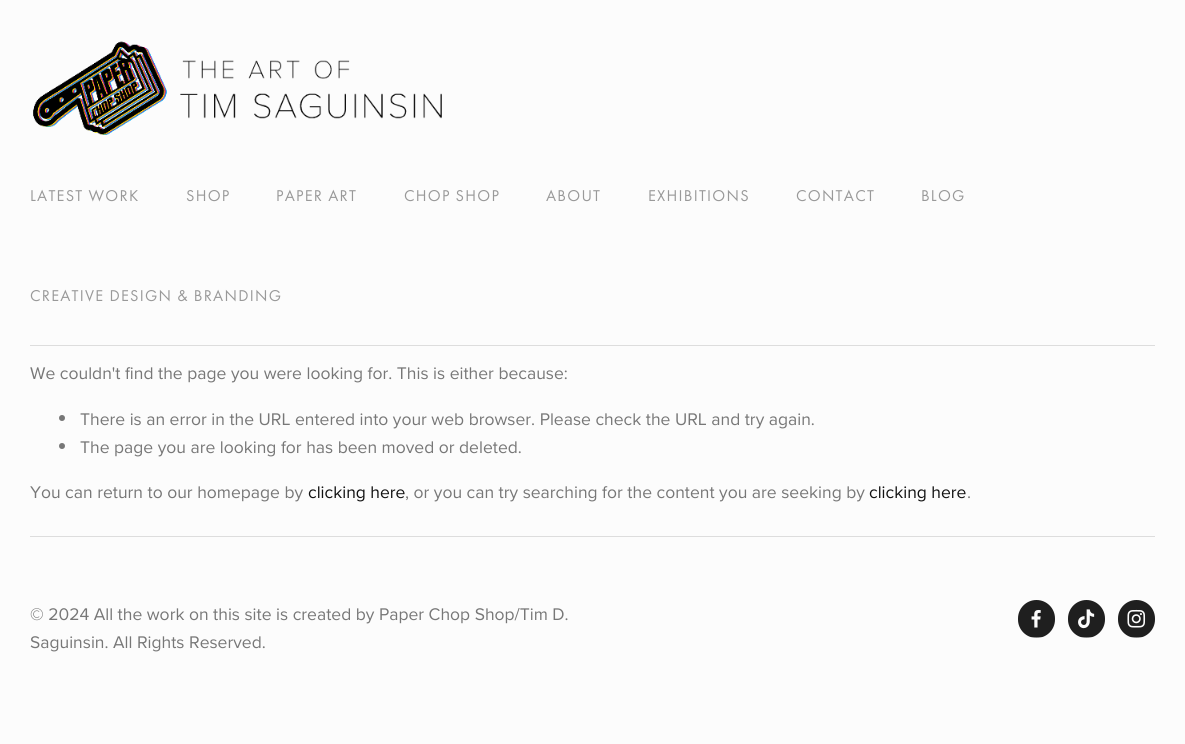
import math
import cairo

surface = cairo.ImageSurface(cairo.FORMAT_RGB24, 1185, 744)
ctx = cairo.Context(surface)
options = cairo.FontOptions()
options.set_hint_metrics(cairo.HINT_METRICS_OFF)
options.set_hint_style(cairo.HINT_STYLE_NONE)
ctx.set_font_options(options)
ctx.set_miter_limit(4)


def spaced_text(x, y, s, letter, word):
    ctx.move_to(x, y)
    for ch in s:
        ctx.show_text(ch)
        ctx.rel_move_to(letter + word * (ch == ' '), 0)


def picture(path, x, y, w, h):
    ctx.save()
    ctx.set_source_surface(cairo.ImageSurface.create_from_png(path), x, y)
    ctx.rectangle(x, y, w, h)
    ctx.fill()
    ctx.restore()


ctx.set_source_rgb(0.988, 0.988, 0.988)
ctx.paint()
picture("img1.png", 33, 41, 409, 94)
ctx.select_font_face("Futura PT")
ctx.set_font_size(16.25)
ctx.set_source_rgb(0.6, 0.6, 0.6)
spaced_text(30, 201, "LATEST WORK", 1.25, 0)
spaced_text(186, 201, "SHOP", 1.25, 0)
spaced_text(276, 201, "PAPER ART", 1.25, 0)
spaced_text(404, 201, "CHOP SHOP", 1.25, 0)
spaced_text(546, 201, "ABOUT", 1.25, 0)
spaced_text(648, 201, "EXHIBITIONS", 1.25, 0)
spaced_text(796, 201, "CONTACT", 1.25, 0)
spaced_text(921, 201, "BLOG", 1.25, 0)
spaced_text(30, 301, "CREATIVE DESIGN & BRANDING", 1.25, 0)
ctx.set_source_rgb(0.867, 0.867, 0.867)
ctx.rectangle(30, 345, 1125, 1)
ctx.fill()
ctx.select_font_face("Proxima Nova")
ctx.set_font_size(17.5)
ctx.set_source_rgb(0.467, 0.467, 0.467)
ctx.move_to(30, 379)
ctx.show_text("We couldn't find the page you were looking for. This is either because:")
ctx.new_path()
ctx.arc(62, 418, 3, 0, 2 * math.pi)
ctx.fill()
ctx.move_to(80, 425)
ctx.show_text("There is an error in the URL entered into your web browser. Please check the URL and try again.")
ctx.new_path()
ctx.arc(62, 446, 3, 0, 2 * math.pi)
ctx.fill()
ctx.move_to(80, 453)
ctx.show_text("The page you are looking for has been moved or deleted.")
ctx.move_to(30, 498)
ctx.show_text("You can return to our homepage by")
ctx.set_source_rgb(0.067, 0.067, 0.067)
ctx.move_to(308, 498)
ctx.show_text("clicking here")
ctx.set_source_rgb(0.467, 0.467, 0.467)
ctx.move_to(405, 498)
ctx.show_text(", or you can try searching for the content you are seeking by")
ctx.set_source_rgb(0.067, 0.067, 0.067)
ctx.move_to(869, 498)
ctx.show_text("clicking here")
ctx.set_source_rgb(0.467, 0.467, 0.467)
ctx.move_to(967, 498)
ctx.show_text(".")
ctx.set_source_rgb(0.867, 0.867, 0.867)
ctx.rectangle(30, 536, 1125, 1)
ctx.fill()
ctx.set_source_rgb(0.467, 0.467, 0.467)
ctx.move_to(30, 620)
ctx.show_text("© 2024 All the work on this site is created by Paper Chop Shop/Tim D.")
ctx.move_to(30, 648)
ctx.show_text("Saguinsin. All Rights Reserved.")
picture("img2.png", 1018, 600, 37, 38)
picture("img3.png", 1068, 600, 37, 38)
picture("img4.png", 1118, 600, 37, 38)
surface.write_to_png("page.png")
